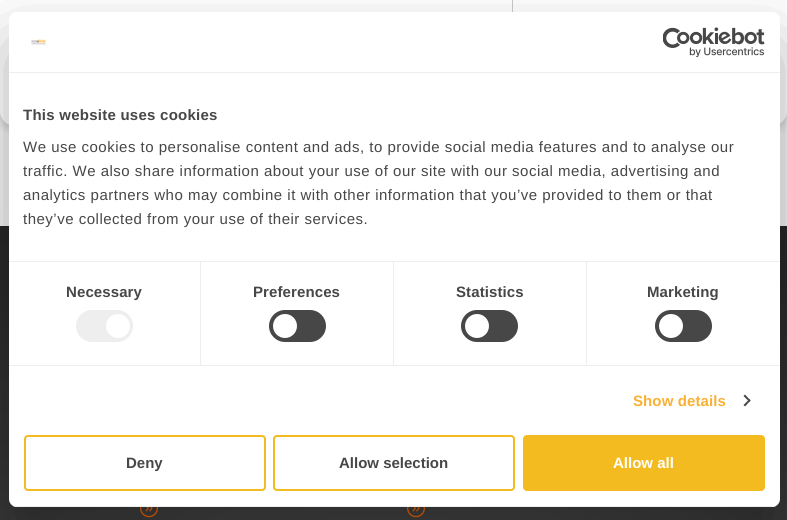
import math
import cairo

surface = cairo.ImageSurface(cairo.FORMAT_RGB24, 787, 520)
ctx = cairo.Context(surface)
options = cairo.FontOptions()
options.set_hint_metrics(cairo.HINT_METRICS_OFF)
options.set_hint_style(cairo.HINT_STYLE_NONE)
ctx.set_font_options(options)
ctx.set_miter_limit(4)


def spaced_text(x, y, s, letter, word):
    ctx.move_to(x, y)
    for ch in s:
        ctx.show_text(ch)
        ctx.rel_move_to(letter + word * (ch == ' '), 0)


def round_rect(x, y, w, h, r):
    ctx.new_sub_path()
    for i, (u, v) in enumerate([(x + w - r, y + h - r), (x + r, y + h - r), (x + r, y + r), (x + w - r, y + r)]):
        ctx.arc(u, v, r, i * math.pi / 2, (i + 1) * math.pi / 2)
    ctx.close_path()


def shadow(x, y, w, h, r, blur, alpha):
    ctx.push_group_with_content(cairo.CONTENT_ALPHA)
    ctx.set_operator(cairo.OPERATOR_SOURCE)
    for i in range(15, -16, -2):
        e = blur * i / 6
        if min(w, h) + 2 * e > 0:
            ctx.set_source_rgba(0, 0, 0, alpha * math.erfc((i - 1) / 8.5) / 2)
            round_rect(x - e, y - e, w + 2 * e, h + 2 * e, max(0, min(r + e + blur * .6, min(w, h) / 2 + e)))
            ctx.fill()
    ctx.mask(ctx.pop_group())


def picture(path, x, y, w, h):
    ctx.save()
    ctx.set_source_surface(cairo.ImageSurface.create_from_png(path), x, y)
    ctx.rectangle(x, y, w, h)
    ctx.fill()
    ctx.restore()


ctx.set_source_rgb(1, 1, 1)
ctx.paint()
picture("img1.png", 0, 111, 787, 115)
ctx.set_source_rgb(0, 0, 0)
shadow(0, -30, 787, 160, 15, 5, 0.21)
ctx.set_source_rgb(1, 1, 1)
round_rect(0, -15, 787, 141, 15)
ctx.fill()
ctx.set_source_rgb(0.792, 0.792, 0.792)
ctx.rectangle(512, 0, 1, 12)
ctx.fill()
picture("img2.png", 0, 226, 787, 294)
picture("img3.png", 140, 507, 18, 11)
picture("img4.png", 407, 507, 18, 11)
ctx.set_source_rgb(0, 0, 0)
shadow(9, 44, 771, 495, 8, 34, 0.3)
ctx.set_source_rgb(1, 1, 1)
round_rect(9, 12, 771, 495, 8)
ctx.fill()
ctx.set_source_rgb(0.933, 0.933, 0.933)
ctx.rectangle(9, 72, 771, 1)
ctx.fill()
picture("img5.png", 31, 39, 16, 6)
picture("img6.png", 663, 27, 102, 30)
ctx.rectangle(9, 261, 771, 1)
ctx.fill()
ctx.select_font_face("Liberation Sans", cairo.FONT_SLANT_NORMAL, cairo.FONT_WEIGHT_BOLD)
ctx.set_font_size(15)
ctx.set_source_rgb(0.282, 0.278, 0.278)
spaced_text(23, 120, "This website uses cookies", 0.25, 0)
ctx.select_font_face("Liberation Sans")
spaced_text(23, 152, "We use cookies to personalise content and ads, to provide social media features and to analyse our", 0.5, 0)
spaced_text(23, 176, "traffic. We also share information about your use of our site with our social media, advertising and", 0.5, 0)
spaced_text(23, 200, "analytics partners who may combine it with other information that you’ve provided to them or that", 0.5, 0)
spaced_text(23, 224, "they’ve collected from your use of their services.", 0.5, 0)
ctx.set_source_rgb(0.933, 0.933, 0.933)
ctx.rectangle(9, 365, 771, 1)
ctx.fill()
ctx.rectangle(200, 262, 1, 103)
ctx.fill()
ctx.select_font_face("Liberation Sans", cairo.FONT_SLANT_NORMAL, cairo.FONT_WEIGHT_BOLD)
ctx.set_source_rgb(0.282, 0.278, 0.278)
spaced_text(66, 297, "Necessary", 0.1, 0)
ctx.set_source_rgb(0.933, 0.933, 0.933)
round_rect(76, 310, 57, 32, 16)
ctx.fill()
ctx.set_source_rgb(1, 1, 1)
ctx.arc(118, 326, 12, 0, 2 * math.pi)
ctx.fill()
ctx.set_source_rgb(0.933, 0.933, 0.933)
ctx.rectangle(393, 262, 1, 103)
ctx.fill()
ctx.set_source_rgb(0.282, 0.278, 0.278)
spaced_text(253, 297, "Preferences", 0.1, 0)
round_rect(269, 310, 57, 32, 16)
ctx.fill()
ctx.set_source_rgb(1, 1, 1)
ctx.arc(285, 326, 12, 0, 2 * math.pi)
ctx.fill()
ctx.set_source_rgb(0.933, 0.933, 0.933)
ctx.rectangle(586, 262, 1, 103)
ctx.fill()
ctx.set_source_rgb(0.282, 0.278, 0.278)
spaced_text(456, 297, "Statistics", 0.1, 0)
round_rect(461, 310, 57, 32, 16)
ctx.fill()
ctx.set_source_rgb(1, 1, 1)
ctx.arc(477, 326, 12, 0, 2 * math.pi)
ctx.fill()
ctx.set_source_rgb(0.282, 0.278, 0.278)
spaced_text(647, 297, "Marketing", 0.1, 0)
round_rect(655, 310, 57, 32, 16)
ctx.fill()
ctx.set_source_rgb(1, 1, 1)
ctx.arc(671, 326, 12, 0, 2 * math.pi)
ctx.fill()
ctx.set_source_rgb(0.976, 0.694, 0.204)
spaced_text(633, 406, "Show details", 0.1, 0)
ctx.set_source_rgb(0.282, 0.278, 0.278)
ctx.new_path()
ctx.move_to(745, 394.5)
ctx.line_to(750.5, 400.5)
ctx.line_to(749.5, 402)
ctx.line_to(743.5, 396)
ctx.close_path()
ctx.fill()
ctx.new_path()
ctx.move_to(749.5, 399)
ctx.line_to(750.5, 400.5)
ctx.line_to(745, 406.5)
ctx.line_to(743.5, 405)
ctx.close_path()
ctx.fill()
ctx.save()
round_rect(9, 12, 771, 495, 8)
ctx.clip()
ctx.set_source_rgb(0.933, 0.933, 0.933)
ctx.rectangle(9, 506, 771, 1)
ctx.fill()
ctx.restore()
round_rect(25, 436, 240, 54, 3)
ctx.set_source_rgb(0.953, 0.733, 0.125)
ctx.stroke()
ctx.set_source_rgb(0.282, 0.278, 0.278)
ctx.move_to(126, 468)
ctx.show_text("Deny")
round_rect(274, 436, 240, 54, 3)
ctx.set_source_rgb(0.953, 0.733, 0.125)
ctx.stroke()
ctx.set_source_rgb(0.282, 0.278, 0.278)
ctx.move_to(339, 468)
ctx.show_text("Allow selection")
ctx.set_source_rgb(0.953, 0.733, 0.125)
round_rect(524, 436, 240, 54, 3)
ctx.fill_preserve()
ctx.stroke()
ctx.set_source_rgb(1, 1, 1)
ctx.move_to(613, 468)
ctx.show_text("Allow all")
surface.write_to_png("page.png")
